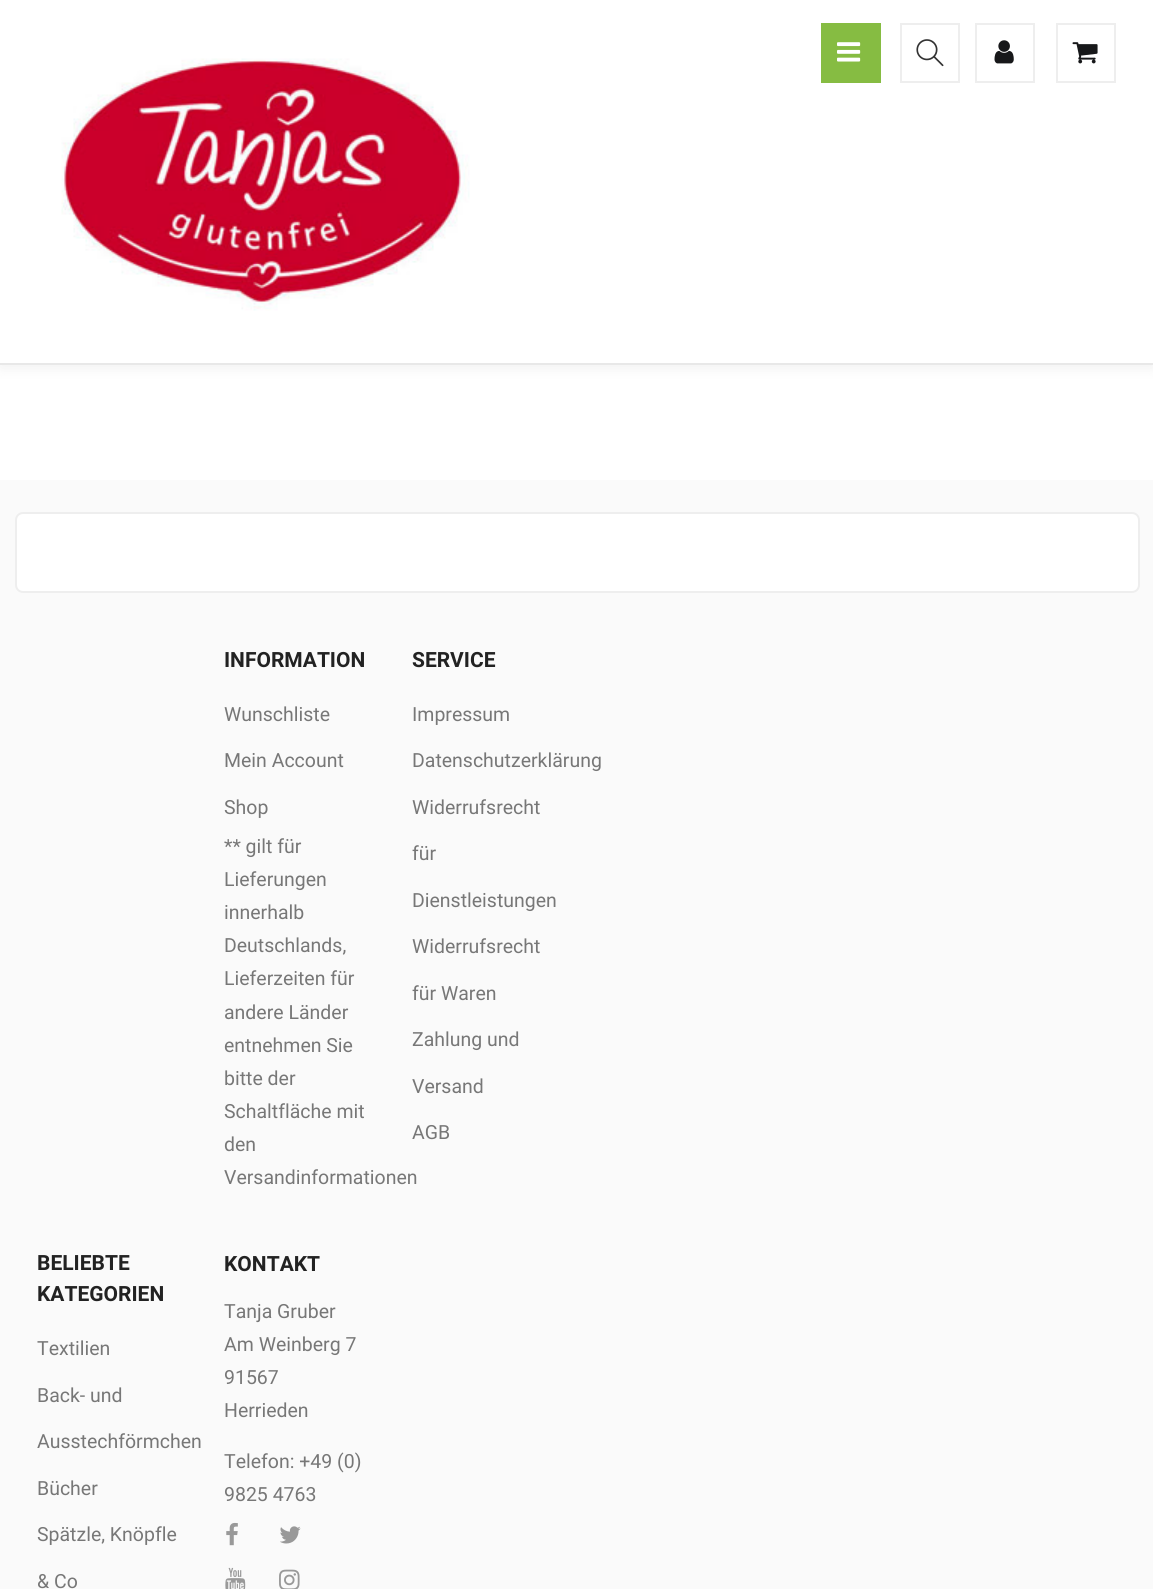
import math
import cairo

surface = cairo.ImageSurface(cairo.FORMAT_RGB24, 1153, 1589)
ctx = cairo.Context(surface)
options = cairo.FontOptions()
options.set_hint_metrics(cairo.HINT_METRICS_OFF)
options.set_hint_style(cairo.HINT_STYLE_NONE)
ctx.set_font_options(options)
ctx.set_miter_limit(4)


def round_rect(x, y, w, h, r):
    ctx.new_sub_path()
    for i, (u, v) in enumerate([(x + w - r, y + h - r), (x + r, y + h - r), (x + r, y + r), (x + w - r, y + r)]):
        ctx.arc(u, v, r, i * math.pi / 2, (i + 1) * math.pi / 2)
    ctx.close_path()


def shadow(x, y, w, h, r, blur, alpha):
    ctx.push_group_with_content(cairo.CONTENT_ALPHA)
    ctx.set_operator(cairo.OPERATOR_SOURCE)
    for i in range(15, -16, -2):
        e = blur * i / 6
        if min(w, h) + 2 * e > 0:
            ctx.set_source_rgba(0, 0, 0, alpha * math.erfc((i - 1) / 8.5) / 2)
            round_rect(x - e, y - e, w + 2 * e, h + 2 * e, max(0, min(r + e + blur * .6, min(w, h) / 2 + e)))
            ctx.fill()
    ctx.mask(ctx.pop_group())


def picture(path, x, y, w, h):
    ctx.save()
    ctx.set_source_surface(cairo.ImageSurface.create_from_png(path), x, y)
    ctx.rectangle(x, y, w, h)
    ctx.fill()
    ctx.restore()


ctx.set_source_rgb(1, 1, 1)
ctx.paint()
ctx.set_source_rgb(0, 0, 0)
shadow(0, 3, 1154, 365, 0, 7.5, 0.06)
ctx.set_source_rgb(1, 1, 1)
ctx.rectangle(0, 0, 1153, 363)
ctx.fill()
ctx.set_source_rgb(0.91, 0.91, 0.91)
ctx.rectangle(0, 363, 1153, 2)
ctx.fill()
picture("img1.png", 61, 58, 409, 253)
ctx.set_source_rgb(0.525, 0.737, 0.259)
ctx.rectangle(821, 23, 60, 60)
ctx.fill()
picture("img2.png", 837, 42, 24, 20)
ctx.rectangle(901, 24, 58, 58)
ctx.set_source_rgb(0.933, 0.933, 0.933)
ctx.stroke()
picture("img3.png", 916, 39, 28, 28)
ctx.rectangle(976, 24, 58, 58)
ctx.stroke()
picture("img4.png", 994, 40, 20, 24)
ctx.rectangle(1057, 24, 58, 58)
ctx.stroke()
picture("img5.png", 1072, 42, 26, 22)
ctx.set_source_rgb(0.98, 0.98, 0.98)
ctx.rectangle(0, 480, 1153, 1109)
ctx.fill()
ctx.set_source_rgb(1, 1, 1)
round_rect(16, 513, 1123, 79, 7)
ctx.fill_preserve()
ctx.set_source_rgb(0.933, 0.933, 0.933)
ctx.stroke()
ctx.select_font_face("Roboto", cairo.FONT_SLANT_NORMAL, cairo.FONT_WEIGHT_BOLD)
ctx.set_font_size(21)
ctx.set_source_rgb(0.133, 0.133, 0.133)
ctx.move_to(224, 667)
ctx.show_text("INFORMATION")
ctx.select_font_face("Roboto")
ctx.set_font_size(19.5)
ctx.set_source_rgb(0.467, 0.467, 0.467)
ctx.move_to(224, 721)
ctx.show_text("Wunschliste")
ctx.move_to(224, 767)
ctx.show_text("Mein Account")
ctx.move_to(224, 814)
ctx.show_text("Shop")
ctx.move_to(224, 853)
ctx.show_text("** gilt für")
ctx.move_to(224, 886)
ctx.show_text("Lieferungen")
ctx.move_to(224, 919)
ctx.show_text("innerhalb")
ctx.move_to(224, 952)
ctx.show_text("Deutschlands,")
ctx.move_to(224, 985)
ctx.show_text("Lieferzeiten für")
ctx.move_to(224, 1019)
ctx.show_text("andere Länder")
ctx.move_to(224, 1052)
ctx.show_text("entnehmen Sie")
ctx.move_to(224, 1085)
ctx.show_text("bitte der")
ctx.move_to(224, 1118)
ctx.show_text("Schaltfläche mit")
ctx.move_to(224, 1151)
ctx.show_text("den")
ctx.move_to(224, 1184)
ctx.show_text("Versandinformationen")
ctx.select_font_face("Roboto", cairo.FONT_SLANT_NORMAL, cairo.FONT_WEIGHT_BOLD)
ctx.set_font_size(21)
ctx.set_source_rgb(0.133, 0.133, 0.133)
ctx.move_to(412, 667)
ctx.show_text("SERVICE")
ctx.select_font_face("Roboto")
ctx.set_font_size(19.5)
ctx.set_source_rgb(0.467, 0.467, 0.467)
ctx.move_to(412, 721)
ctx.show_text("Impressum")
ctx.move_to(412, 767)
ctx.show_text("Datenschutzerklärung")
ctx.move_to(412, 814)
ctx.show_text("Widerrufsrecht")
ctx.move_to(412, 860)
ctx.show_text("für")
ctx.move_to(412, 907)
ctx.show_text("Dienstleistungen")
ctx.move_to(412, 953)
ctx.show_text("Widerrufsrecht")
ctx.move_to(412, 1000)
ctx.show_text("für Waren")
ctx.move_to(412, 1046)
ctx.show_text("Zahlung und")
ctx.move_to(412, 1093)
ctx.show_text("Versand")
ctx.move_to(412, 1139)
ctx.show_text("AGB")
ctx.select_font_face("Roboto", cairo.FONT_SLANT_NORMAL, cairo.FONT_WEIGHT_BOLD)
ctx.set_font_size(21)
ctx.set_source_rgb(0.133, 0.133, 0.133)
ctx.move_to(37, 1270)
ctx.show_text("BELIEBTE")
ctx.move_to(37, 1301)
ctx.show_text("KATEGORIEN")
ctx.select_font_face("Roboto")
ctx.set_font_size(19.5)
ctx.set_source_rgb(0.467, 0.467, 0.467)
ctx.move_to(37, 1355)
ctx.show_text("Textilien")
ctx.move_to(37, 1402)
ctx.show_text("Back- und")
ctx.move_to(37, 1448)
ctx.show_text("Ausstechförmchen")
ctx.move_to(37, 1495)
ctx.show_text("Bücher")
ctx.move_to(37, 1541)
ctx.show_text("Spätzle, Knöpfle")
ctx.move_to(37, 1588)
ctx.show_text("& Co")
ctx.select_font_face("Roboto", cairo.FONT_SLANT_NORMAL, cairo.FONT_WEIGHT_BOLD)
ctx.set_font_size(21)
ctx.set_source_rgb(0.133, 0.133, 0.133)
ctx.move_to(224, 1271)
ctx.show_text("KONTAKT")
ctx.select_font_face("Roboto")
ctx.set_font_size(19.5)
ctx.set_source_rgb(0.467, 0.467, 0.467)
ctx.move_to(224, 1318)
ctx.show_text("Tanja Gruber")
ctx.move_to(224, 1351)
ctx.show_text("Am Weinberg 7")
ctx.move_to(224, 1384)
ctx.show_text("91567")
ctx.move_to(224, 1417)
ctx.show_text("Herrieden")
ctx.move_to(224, 1468)
ctx.show_text("Telefon: +49 (0)")
ctx.move_to(224, 1501)
ctx.show_text("9825 4763")
picture("img6.png", 226, 1522, 12, 24)
picture("img7.png", 280, 1526, 21, 18)
picture("img8.png", 225, 1567, 21, 22)
picture("img9.png", 279, 1569, 21, 20)
surface.write_to_png("page.png")
